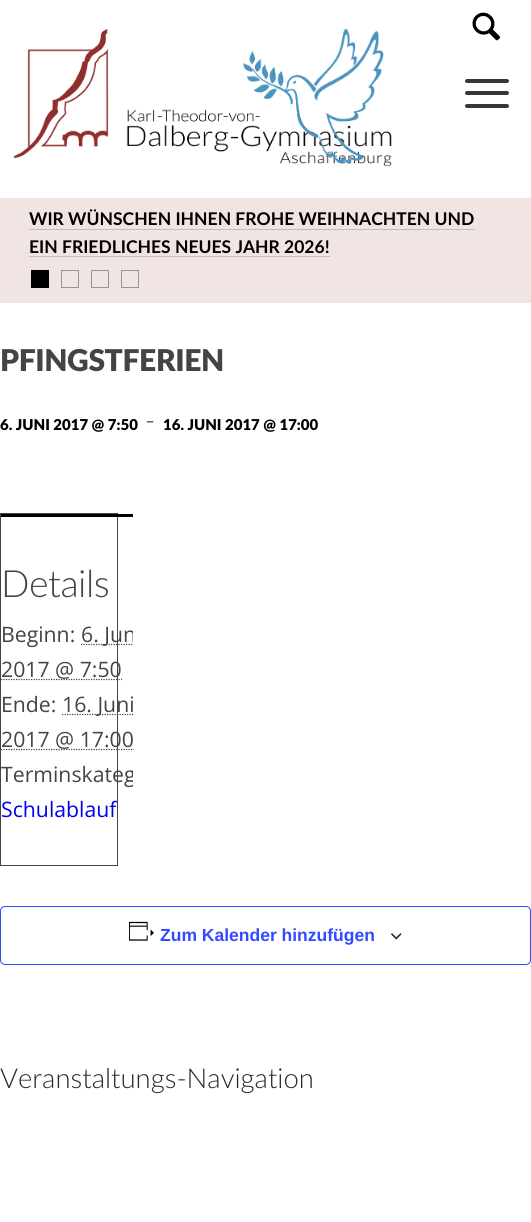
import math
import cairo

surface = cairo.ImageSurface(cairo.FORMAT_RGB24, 531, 1222)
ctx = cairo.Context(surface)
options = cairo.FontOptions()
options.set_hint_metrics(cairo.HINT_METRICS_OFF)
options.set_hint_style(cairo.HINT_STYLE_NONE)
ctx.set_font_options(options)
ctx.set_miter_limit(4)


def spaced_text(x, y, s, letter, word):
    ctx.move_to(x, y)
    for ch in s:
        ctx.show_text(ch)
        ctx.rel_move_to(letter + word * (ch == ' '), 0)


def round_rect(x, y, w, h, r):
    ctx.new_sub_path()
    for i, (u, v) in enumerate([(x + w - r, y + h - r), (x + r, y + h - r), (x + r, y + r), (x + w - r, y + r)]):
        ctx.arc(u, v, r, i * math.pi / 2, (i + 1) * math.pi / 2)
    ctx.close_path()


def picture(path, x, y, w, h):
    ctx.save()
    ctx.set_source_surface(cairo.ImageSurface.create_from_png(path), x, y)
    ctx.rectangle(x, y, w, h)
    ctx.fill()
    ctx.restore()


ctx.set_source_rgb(1, 1, 1)
ctx.paint()
picture("img1.png", 13, 28, 379, 139)
picture("img2.png", 472, 12, 29, 29)
ctx.set_source_rgb(0.22, 0.22, 0.22)
round_rect(465, 91, 44, 4, 2)
ctx.fill()
round_rect(465, 79, 44, 4, 2)
ctx.fill()
round_rect(465, 104, 44, 4, 2)
ctx.fill()
ctx.set_source_rgb(0.945, 0.898, 0.894)
ctx.rectangle(0, 198, 531, 105)
ctx.fill()
ctx.select_font_face("Lato", cairo.FONT_SLANT_NORMAL, cairo.FONT_WEIGHT_BOLD)
ctx.set_font_size(17.5)
ctx.set_source_rgb(0, 0, 0)
ctx.move_to(29, 225)
ctx.show_text("WIR WÜNSCHEN IHNEN FROHE WEIHNACHTEN UND")
ctx.set_source_rgb(0.776, 0.737, 0.733)
ctx.rectangle(29, 229, 446, 1)
ctx.fill()
ctx.set_source_rgb(0, 0, 0)
ctx.move_to(29, 253)
ctx.show_text("EIN FRIEDLICHES NEUES JAHR 2026!")
ctx.set_source_rgb(0.776, 0.737, 0.733)
ctx.rectangle(29, 256, 301, 1)
ctx.fill()
ctx.set_source_rgb(0, 0, 0)
ctx.rectangle(31, 270, 18, 18)
ctx.fill()
ctx.rectangle(61.5, 270.5, 17, 17)
ctx.set_source_rgb(0.604, 0.576, 0.573)
ctx.set_line_width(1)
ctx.stroke()
ctx.rectangle(91.5, 270.5, 17, 17)
ctx.stroke()
ctx.rectangle(121.5, 270.5, 17, 17)
ctx.stroke()
ctx.select_font_face("Lato ExtraBold")
ctx.set_font_size(30)
ctx.set_source_rgb(0.267, 0.267, 0.267)
spaced_text(0, 371, "PFINGSTFERIEN", -0.4, 0)
ctx.set_font_size(15)
ctx.set_source_rgb(0, 0, 0)
ctx.move_to(0, 430)
ctx.show_text("6. JUNI 2017 @ 7:50")
ctx.select_font_face("Lato Light")
ctx.set_font_size(27.5)
ctx.set_source_rgb(0.161, 0.161, 0.161)
ctx.move_to(145, 430)
ctx.show_text("-")
ctx.select_font_face("Lato ExtraBold")
ctx.set_font_size(15)
ctx.set_source_rgb(0, 0, 0)
ctx.move_to(163, 430)
ctx.show_text("16. JUNI 2017 @ 17:00")
ctx.rectangle(0.5, 513.5, 117, 352)
ctx.set_source_rgb(0.267, 0.267, 0.267)
ctx.stroke()
ctx.set_source_rgb(0, 0, 0)
ctx.rectangle(1, 514, 132, 3)
ctx.fill()
ctx.select_font_face("Lato Light")
ctx.set_font_size(37.5)
ctx.set_source_rgb(0.267, 0.267, 0.267)
spaced_text(1, 597, "Details", -0.5, 0)
ctx.select_font_face("Open Sans")
ctx.set_font_size(21.25)
ctx.move_to(1, 642)
ctx.show_text("Beginn:")
ctx.save()
ctx.rectangle(0, 513, 133, 353)
ctx.clip()
ctx.new_path()
ctx.move_to(81, 644.5)
ctx.line_to(141.5, 644.5)
ctx.set_line_width(1.2)
ctx.set_dash([1.25, 1.25])
ctx.stroke()
ctx.move_to(81, 642)
ctx.show_text("6. Jun")
ctx.restore()
ctx.new_path()
ctx.move_to(1, 679.5)
ctx.line_to(122, 679.5)
ctx.set_line_width(1.2)
ctx.set_dash([1.25, 1.25])
ctx.stroke()
ctx.move_to(1, 677)
ctx.show_text("2017 @ 7:50")
ctx.move_to(1, 712)
ctx.show_text("Ende:")
ctx.new_path()
ctx.move_to(62, 714.5)
ctx.line_to(134.5, 714.5)
ctx.stroke()
ctx.move_to(62, 712)
ctx.show_text("16. Juni")
ctx.new_path()
ctx.move_to(1, 749.5)
ctx.line_to(134, 749.5)
ctx.stroke()
ctx.move_to(1, 747)
ctx.show_text("2017 @ 17:00")
ctx.save()
ctx.rectangle(0, 513, 133, 353)
ctx.clip()
ctx.move_to(1, 782)
ctx.show_text("Terminskateg")
ctx.restore()
ctx.set_source_rgb(0, 0, 0.933)
ctx.move_to(1, 817)
ctx.show_text("Schulablauf")
round_rect(0.5, 906.5, 530, 58, 4.5)
ctx.set_source_rgb(0.2, 0.29, 1)
ctx.set_line_width(1)
ctx.set_dash([])
ctx.stroke()
picture("img3.png", 129, 921, 25, 20)
ctx.select_font_face("Liberation Sans", cairo.FONT_SLANT_NORMAL, cairo.FONT_WEIGHT_BOLD)
ctx.set_font_size(17.5)
ctx.move_to(160, 941)
ctx.show_text("Zum Kalender hinzufügen")
picture("img4.png", 391, 933, 11, 7)
ctx.select_font_face("Lato Light")
ctx.set_font_size(27.5)
ctx.set_source_rgb(0.161, 0.161, 0.161)
ctx.move_to(0, 1088)
ctx.show_text("Veranstaltungs-Navigation")
surface.write_to_png("page.png")
